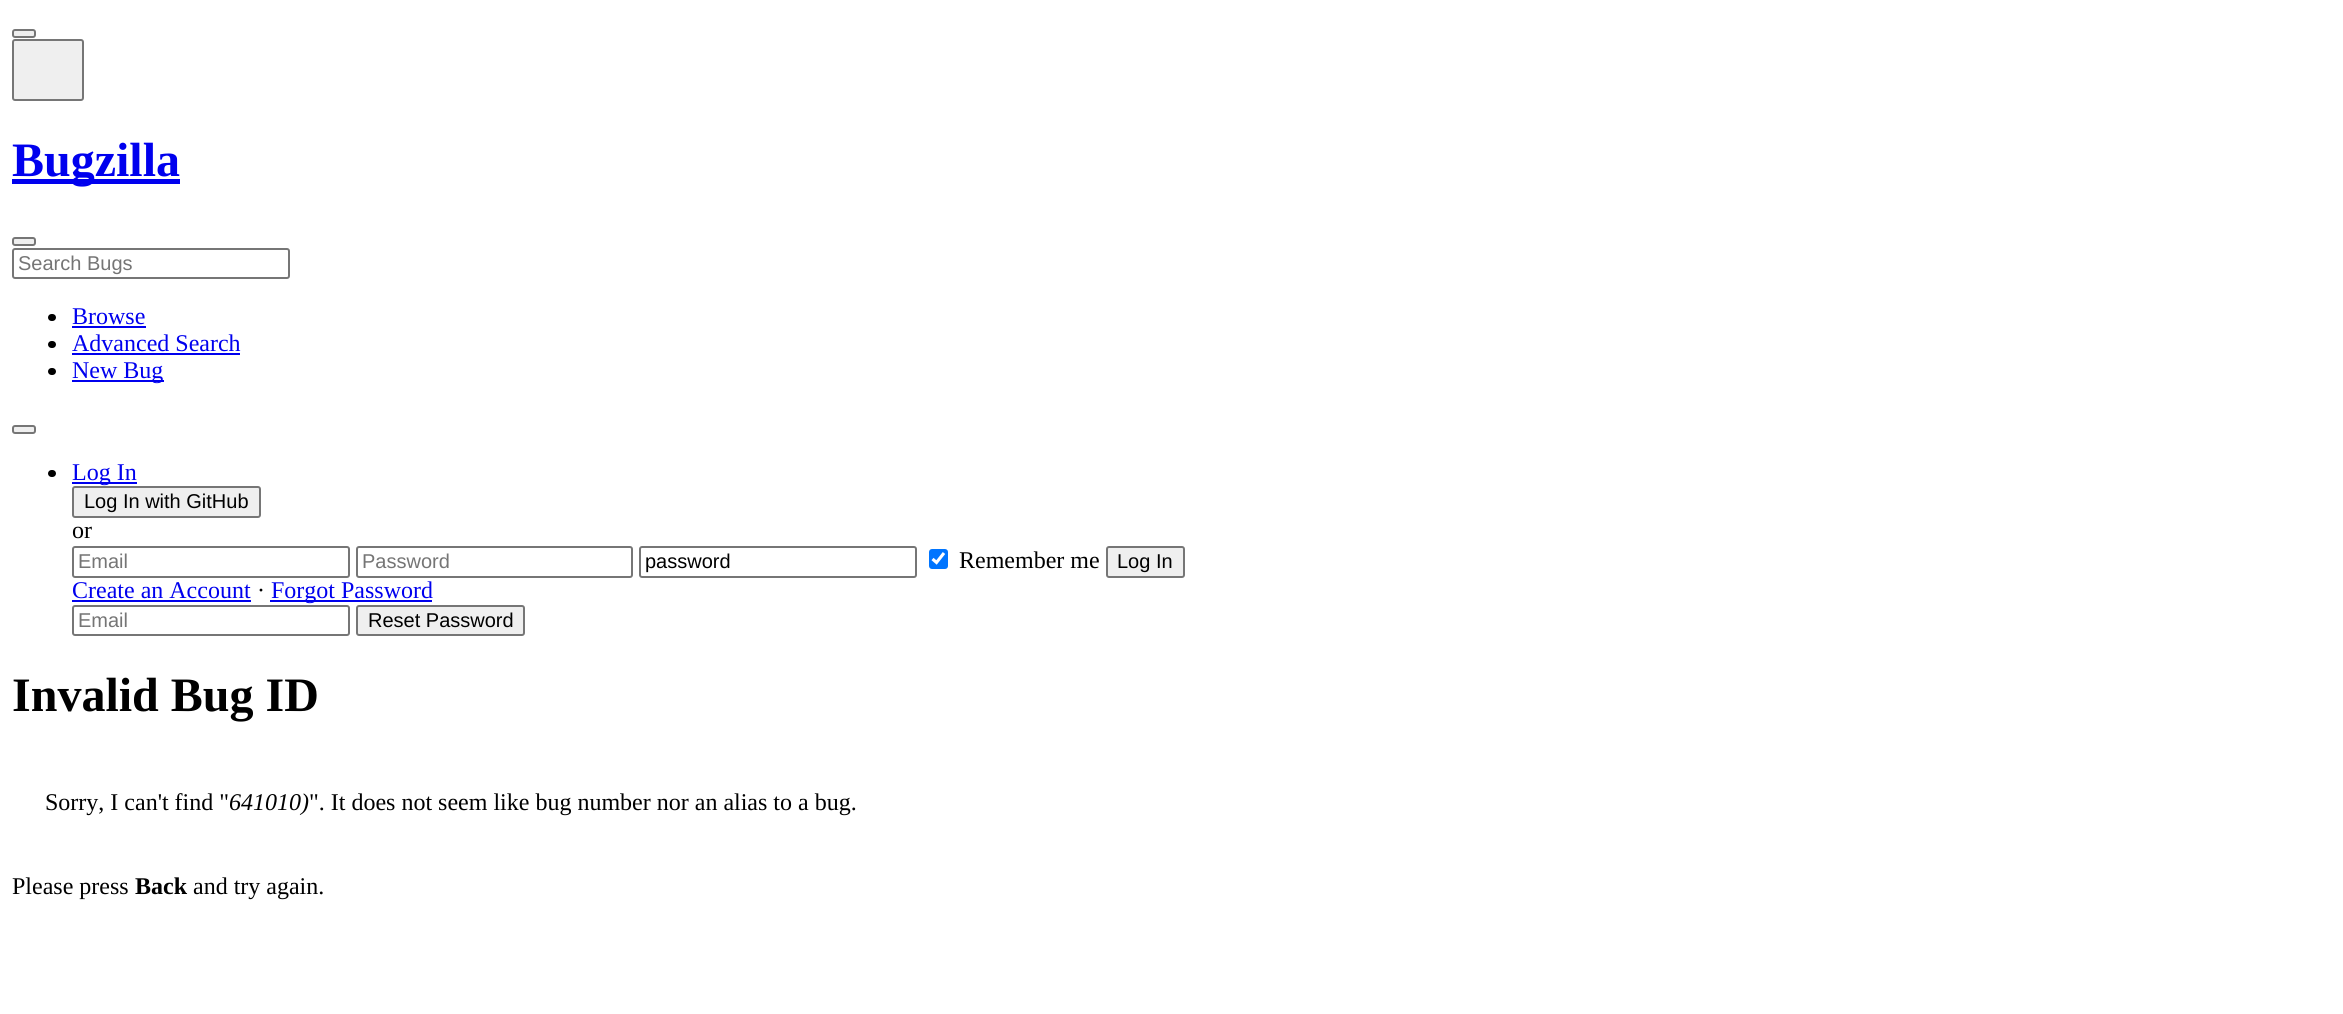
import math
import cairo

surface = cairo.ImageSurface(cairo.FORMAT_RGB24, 2343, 1014)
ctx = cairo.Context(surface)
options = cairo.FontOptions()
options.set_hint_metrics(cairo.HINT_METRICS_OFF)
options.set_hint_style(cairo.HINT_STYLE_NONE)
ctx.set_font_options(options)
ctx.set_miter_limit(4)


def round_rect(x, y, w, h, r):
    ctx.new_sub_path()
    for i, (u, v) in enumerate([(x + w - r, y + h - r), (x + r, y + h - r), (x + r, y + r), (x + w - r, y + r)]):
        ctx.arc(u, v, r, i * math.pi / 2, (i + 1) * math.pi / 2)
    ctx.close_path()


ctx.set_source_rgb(1, 1, 1)
ctx.paint()
ctx.set_source_rgb(0.937, 0.937, 0.937)
round_rect(13, 30, 22, 7, 2)
ctx.fill_preserve()
ctx.set_source_rgb(0.463, 0.463, 0.463)
ctx.stroke()
ctx.set_source_rgb(0.937, 0.937, 0.937)
round_rect(13, 40, 70, 60, 2)
ctx.fill_preserve()
ctx.set_source_rgb(0.463, 0.463, 0.463)
ctx.stroke()
ctx.set_source_rgb(0, 0, 0.933)
ctx.rectangle(12, 179, 168, 5)
ctx.fill()
ctx.select_font_face("Liberation Serif", cairo.FONT_SLANT_NORMAL, cairo.FONT_WEIGHT_BOLD)
ctx.set_font_size(48)
ctx.move_to(12, 176)
ctx.show_text("Bugzilla")
ctx.set_source_rgb(0.937, 0.937, 0.937)
round_rect(13, 238, 22, 7, 2)
ctx.fill_preserve()
ctx.set_source_rgb(0.463, 0.463, 0.463)
ctx.stroke()
round_rect(13, 249, 276, 29, 2)
ctx.stroke()
ctx.select_font_face("Liberation Sans")
ctx.set_font_size(20)
ctx.set_source_rgb(0.459, 0.459, 0.459)
ctx.move_to(18, 270)
ctx.show_text("Search Bugs")
ctx.set_source_rgb(0, 0, 0)
round_rect(48, 314, 8, 7, 3.5)
ctx.fill()
ctx.select_font_face("Liberation Serif")
ctx.set_font_size(24)
ctx.set_source_rgb(0, 0, 0.933)
ctx.move_to(72, 324)
ctx.show_text("Browse")
ctx.rectangle(72, 326, 74, 2)
ctx.fill()
ctx.set_source_rgb(0, 0, 0)
round_rect(48, 341, 8, 7, 3.5)
ctx.fill()
ctx.set_source_rgb(0, 0, 0.933)
ctx.move_to(72, 351)
ctx.show_text("Advanced Search")
ctx.rectangle(72, 353, 168, 2)
ctx.fill()
ctx.set_source_rgb(0, 0, 0)
round_rect(48, 368, 8, 7, 3.5)
ctx.fill()
ctx.set_source_rgb(0, 0, 0.933)
ctx.rectangle(72, 380, 92, 2)
ctx.fill()
ctx.move_to(72, 378)
ctx.show_text("New Bug")
ctx.set_source_rgb(0.937, 0.937, 0.937)
round_rect(13, 426, 22, 7, 2)
ctx.fill_preserve()
ctx.set_source_rgb(0.463, 0.463, 0.463)
ctx.stroke()
ctx.set_source_rgb(0, 0, 0)
round_rect(48, 470, 8, 7, 3.5)
ctx.fill()
ctx.set_source_rgb(0, 0, 0.933)
ctx.rectangle(72, 482, 65, 2)
ctx.fill()
ctx.move_to(72, 480)
ctx.show_text("Log In")
ctx.set_source_rgb(0.937, 0.937, 0.937)
round_rect(73, 487, 187, 30, 2)
ctx.fill_preserve()
ctx.set_source_rgb(0.463, 0.463, 0.463)
ctx.stroke()
ctx.select_font_face("Liberation Sans")
ctx.set_font_size(20)
ctx.set_source_rgb(0, 0, 0)
ctx.move_to(84, 508)
ctx.show_text("Log In with GitHub")
ctx.select_font_face("Liberation Serif")
ctx.set_font_size(24)
ctx.move_to(72, 538)
ctx.show_text("or")
round_rect(73, 547, 276, 30, 2)
ctx.set_source_rgb(0.463, 0.463, 0.463)
ctx.stroke()
ctx.select_font_face("Liberation Sans")
ctx.set_font_size(20)
ctx.set_source_rgb(0.459, 0.459, 0.459)
ctx.move_to(78, 568)
ctx.show_text("Email")
round_rect(357, 547, 275, 30, 2)
ctx.set_source_rgb(0.463, 0.463, 0.463)
ctx.stroke()
ctx.set_source_rgb(0.459, 0.459, 0.459)
ctx.move_to(362, 568)
ctx.show_text("Password")
round_rect(640, 547, 276, 30, 2)
ctx.set_source_rgb(0.463, 0.463, 0.463)
ctx.stroke()
ctx.set_source_rgb(0, 0, 0)
ctx.move_to(645, 568)
ctx.show_text("password")
ctx.set_source_rgb(0, 0.459, 1)
round_rect(929, 549, 19, 20, 3)
ctx.fill()
ctx.new_path()
ctx.move_to(932.5, 559)
ctx.line_to(936.5, 562.5)
ctx.line_to(944, 553)
ctx.set_source_rgb(1, 1, 1)
ctx.set_line_width(3.1)
ctx.stroke()
ctx.select_font_face("Liberation Serif")
ctx.set_font_size(24)
ctx.set_source_rgb(0, 0, 0)
ctx.move_to(959, 568)
ctx.show_text("Remember me")
ctx.set_source_rgb(0.937, 0.937, 0.937)
round_rect(1107, 547, 77, 30, 2)
ctx.fill_preserve()
ctx.set_source_rgb(0.463, 0.463, 0.463)
ctx.set_line_width(2)
ctx.stroke()
ctx.select_font_face("Liberation Sans")
ctx.set_font_size(20)
ctx.set_source_rgb(0, 0, 0)
ctx.move_to(1117, 568)
ctx.show_text("Log In")
ctx.select_font_face("Liberation Serif")
ctx.set_font_size(24)
ctx.set_source_rgb(0, 0, 0.933)
ctx.move_to(72, 598)
ctx.show_text("Create an Account")
ctx.rectangle(72, 600, 179, 2)
ctx.fill()
ctx.set_source_rgb(0, 0, 0)
ctx.move_to(257, 598)
ctx.show_text("·")
ctx.set_source_rgb(0, 0, 0.933)
ctx.rectangle(270, 600, 162, 2)
ctx.fill()
ctx.move_to(271, 598)
ctx.show_text("Forgot Password")
round_rect(73, 606, 276, 29, 2)
ctx.set_source_rgb(0.463, 0.463, 0.463)
ctx.stroke()
ctx.select_font_face("Liberation Sans")
ctx.set_font_size(20)
ctx.set_source_rgb(0.459, 0.459, 0.459)
ctx.move_to(78, 627)
ctx.show_text("Email")
ctx.set_source_rgb(0.937, 0.937, 0.937)
round_rect(357, 606, 167, 29, 2)
ctx.fill_preserve()
ctx.set_source_rgb(0.463, 0.463, 0.463)
ctx.stroke()
ctx.set_source_rgb(0, 0, 0)
ctx.move_to(368, 627)
ctx.show_text("Reset Password")
ctx.select_font_face("Liberation Serif", cairo.FONT_SLANT_NORMAL, cairo.FONT_WEIGHT_BOLD)
ctx.set_font_size(48)
ctx.move_to(12, 711)
ctx.show_text("Invalid Bug ID")
ctx.select_font_face("Liberation Serif")
ctx.set_font_size(24)
ctx.move_to(45, 810)
ctx.show_text("Sorry, I can't find \"")
ctx.select_font_face("Liberation Serif", cairo.FONT_SLANT_ITALIC)
ctx.move_to(229, 810)
ctx.show_text("641010)")
ctx.select_font_face("Liberation Serif")
ctx.move_to(309, 810)
ctx.show_text("\". It does not seem like bug number nor an alias to a bug.")
ctx.move_to(12, 894)
ctx.show_text("Please press")
ctx.select_font_face("Liberation Serif", cairo.FONT_SLANT_NORMAL, cairo.FONT_WEIGHT_BOLD)
ctx.move_to(135, 894)
ctx.show_text("Back")
ctx.select_font_face("Liberation Serif")
ctx.move_to(193, 894)
ctx.show_text("and try again.")
surface.write_to_png("page.png")
